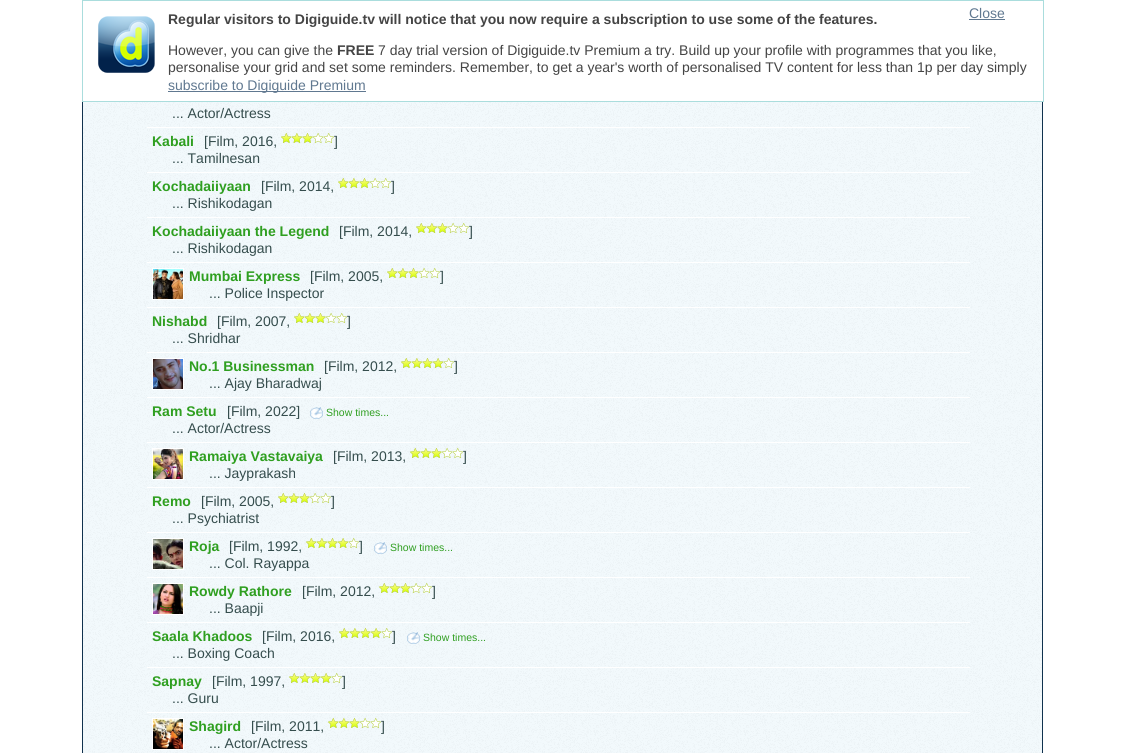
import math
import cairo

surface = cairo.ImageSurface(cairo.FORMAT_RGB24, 1125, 753)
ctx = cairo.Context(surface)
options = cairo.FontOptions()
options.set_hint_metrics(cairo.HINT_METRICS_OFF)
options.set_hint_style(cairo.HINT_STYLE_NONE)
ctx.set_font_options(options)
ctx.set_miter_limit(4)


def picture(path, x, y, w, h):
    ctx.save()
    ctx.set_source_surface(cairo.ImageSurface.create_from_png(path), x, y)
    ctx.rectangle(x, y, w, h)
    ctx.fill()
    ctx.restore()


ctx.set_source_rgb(1, 1, 1)
ctx.paint()
picture("img2.png", 83, 102, 959, 651)
ctx.rectangle(82.5, -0.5, 960, 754)
ctx.set_source_rgb(0.063, 0.196, 0.306)
ctx.set_line_width(1)
ctx.stroke()
ctx.set_source_rgb(1, 1, 1)
ctx.rectangle(1042, 1, 1, 100)
ctx.fill()
ctx.rectangle(82.5, 0.5, 961, 101)
ctx.set_source_rgb(0.667, 0.867, 0.867)
ctx.stroke()
picture("img1.png", 98, 16, 57, 57)
ctx.select_font_face("Liberation Sans", cairo.FONT_SLANT_NORMAL, cairo.FONT_WEIGHT_BOLD)
ctx.set_font_size(14)
ctx.set_source_rgb(0.267, 0.267, 0.267)
ctx.move_to(168, 24)
ctx.show_text("Regular visitors to Digiguide.tv will notice that you now require a subscription to use some of the features.")
ctx.select_font_face("Liberation Sans")
ctx.set_source_rgb(0.376, 0.471, 0.565)
ctx.move_to(969, 18)
ctx.show_text("Close")
ctx.rectangle(969, 19, 36, 1)
ctx.fill()
ctx.set_source_rgb(0.267, 0.267, 0.267)
ctx.move_to(168, 55)
ctx.show_text("However, you can give the")
ctx.select_font_face("Liberation Sans", cairo.FONT_SLANT_NORMAL, cairo.FONT_WEIGHT_BOLD)
ctx.move_to(337, 55)
ctx.show_text("FREE")
ctx.select_font_face("Liberation Sans")
ctx.move_to(378, 55)
ctx.show_text("7 day trial version of Digiguide.tv Premium a try. Build up your profile with programmes that you like,")
ctx.move_to(168, 72)
ctx.show_text("personalise your grid and set some reminders. Remember, to get a year's worth of personalised TV content for less than 1p per day simply")
ctx.set_source_rgb(0.376, 0.471, 0.565)
ctx.rectangle(168, 91, 198, 1)
ctx.fill()
ctx.move_to(168, 90)
ctx.show_text("subscribe to Digiguide Premium")
ctx.set_source_rgb(1, 1, 1)
ctx.rectangle(147, 127, 823, 1)
ctx.fill()
ctx.set_source_rgb(0.208, 0.302, 0.302)
ctx.move_to(172, 118)
ctx.show_text("... Actor/Actress")
ctx.set_source_rgb(1, 1, 1)
ctx.rectangle(147, 172, 823, 1)
ctx.fill()
ctx.select_font_face("Liberation Sans", cairo.FONT_SLANT_NORMAL, cairo.FONT_WEIGHT_BOLD)
ctx.set_source_rgb(0.184, 0.624, 0.125)
ctx.move_to(152, 146)
ctx.show_text("Kabali")
ctx.select_font_face("Liberation Sans")
ctx.set_source_rgb(0.208, 0.302, 0.302)
ctx.move_to(204, 146)
ctx.show_text("[Film, 2016,")
picture("img3.png", 281, 133, 53, 10)
ctx.move_to(334, 146)
ctx.show_text("]")
ctx.move_to(172, 163)
ctx.show_text("... Tamilnesan")
ctx.set_source_rgb(1, 1, 1)
ctx.rectangle(147, 217, 823, 1)
ctx.fill()
ctx.select_font_face("Liberation Sans", cairo.FONT_SLANT_NORMAL, cairo.FONT_WEIGHT_BOLD)
ctx.set_source_rgb(0.184, 0.624, 0.125)
ctx.move_to(152, 191)
ctx.show_text("Kochadaiiyaan")
ctx.select_font_face("Liberation Sans")
ctx.set_source_rgb(0.208, 0.302, 0.302)
ctx.move_to(261, 191)
ctx.show_text("[Film, 2014,")
picture("img4.png", 338, 178, 53, 10)
ctx.move_to(391, 191)
ctx.show_text("]")
ctx.move_to(172, 208)
ctx.show_text("... Rishikodagan")
ctx.set_source_rgb(1, 1, 1)
ctx.rectangle(147, 262, 823, 1)
ctx.fill()
ctx.select_font_face("Liberation Sans", cairo.FONT_SLANT_NORMAL, cairo.FONT_WEIGHT_BOLD)
ctx.set_source_rgb(0.184, 0.624, 0.125)
ctx.move_to(152, 236)
ctx.show_text("Kochadaiiyaan the Legend")
ctx.select_font_face("Liberation Sans")
ctx.set_source_rgb(0.208, 0.302, 0.302)
ctx.move_to(339, 236)
ctx.show_text("[Film, 2014,")
picture("img5.png", 416, 223, 53, 10)
ctx.move_to(469, 236)
ctx.show_text("]")
ctx.move_to(172, 253)
ctx.show_text("... Rishikodagan")
ctx.set_source_rgb(1, 1, 1)
ctx.rectangle(147, 307, 823, 1)
ctx.fill()
ctx.rectangle(152.5, 268.5, 31, 31)
ctx.stroke()
picture("img6.png", 153, 269, 30, 30)
ctx.select_font_face("Liberation Sans", cairo.FONT_SLANT_NORMAL, cairo.FONT_WEIGHT_BOLD)
ctx.set_source_rgb(0.184, 0.624, 0.125)
ctx.move_to(189, 281)
ctx.show_text("Mumbai Express")
ctx.select_font_face("Liberation Sans")
ctx.set_source_rgb(0.208, 0.302, 0.302)
ctx.move_to(310, 281)
ctx.show_text("[Film, 2005,")
picture("img7.png", 387, 268, 53, 10)
ctx.move_to(440, 281)
ctx.show_text("]")
ctx.move_to(209, 298)
ctx.show_text("... Police Inspector")
ctx.set_source_rgb(1, 1, 1)
ctx.rectangle(147, 352, 823, 1)
ctx.fill()
ctx.select_font_face("Liberation Sans", cairo.FONT_SLANT_NORMAL, cairo.FONT_WEIGHT_BOLD)
ctx.set_source_rgb(0.184, 0.624, 0.125)
ctx.move_to(152, 326)
ctx.show_text("Nishabd")
ctx.select_font_face("Liberation Sans")
ctx.set_source_rgb(0.208, 0.302, 0.302)
ctx.move_to(217, 326)
ctx.show_text("[Film, 2007,")
picture("img8.png", 294, 313, 53, 10)
ctx.move_to(347, 326)
ctx.show_text("]")
ctx.move_to(172, 343)
ctx.show_text("... Shridhar")
ctx.set_source_rgb(1, 1, 1)
ctx.rectangle(147, 397, 823, 1)
ctx.fill()
ctx.rectangle(152.5, 358.5, 31, 31)
ctx.stroke()
picture("img9.png", 153, 359, 30, 30)
ctx.select_font_face("Liberation Sans", cairo.FONT_SLANT_NORMAL, cairo.FONT_WEIGHT_BOLD)
ctx.set_source_rgb(0.184, 0.624, 0.125)
ctx.move_to(189, 371)
ctx.show_text("No.1 Businessman")
ctx.select_font_face("Liberation Sans")
ctx.set_source_rgb(0.208, 0.302, 0.302)
ctx.move_to(324, 371)
ctx.show_text("[Film, 2012,")
picture("img10.png", 401, 358, 53, 10)
ctx.move_to(454, 371)
ctx.show_text("]")
ctx.move_to(209, 388)
ctx.show_text("... Ajay Bharadwaj")
ctx.set_source_rgb(1, 1, 1)
ctx.rectangle(147, 442, 823, 1)
ctx.fill()
ctx.select_font_face("Liberation Sans", cairo.FONT_SLANT_NORMAL, cairo.FONT_WEIGHT_BOLD)
ctx.set_source_rgb(0.184, 0.624, 0.125)
ctx.move_to(152, 416)
ctx.show_text("Ram Setu")
ctx.select_font_face("Liberation Sans")
ctx.set_source_rgb(0.208, 0.302, 0.302)
ctx.move_to(227, 416)
ctx.show_text("[Film, 2022]")
picture("img11.png", 310, 407, 13, 12)
ctx.set_font_size(10.5)
ctx.set_source_rgb(0.184, 0.624, 0.125)
ctx.move_to(326, 416)
ctx.show_text("Show times...")
ctx.set_font_size(14)
ctx.set_source_rgb(0.208, 0.302, 0.302)
ctx.move_to(172, 433)
ctx.show_text("... Actor/Actress")
ctx.set_source_rgb(1, 1, 1)
ctx.rectangle(147, 487, 823, 1)
ctx.fill()
ctx.rectangle(152.5, 448.5, 31, 31)
ctx.stroke()
picture("img12.png", 153, 449, 30, 30)
ctx.select_font_face("Liberation Sans", cairo.FONT_SLANT_NORMAL, cairo.FONT_WEIGHT_BOLD)
ctx.set_source_rgb(0.184, 0.624, 0.125)
ctx.move_to(189, 461)
ctx.show_text("Ramaiya Vastavaiya")
ctx.select_font_face("Liberation Sans")
ctx.set_source_rgb(0.208, 0.302, 0.302)
ctx.move_to(333, 461)
ctx.show_text("[Film, 2013,")
picture("img13.png", 410, 448, 53, 10)
ctx.move_to(463, 461)
ctx.show_text("]")
ctx.move_to(209, 478)
ctx.show_text("... Jayprakash")
ctx.set_source_rgb(1, 1, 1)
ctx.rectangle(147, 532, 823, 1)
ctx.fill()
ctx.select_font_face("Liberation Sans", cairo.FONT_SLANT_NORMAL, cairo.FONT_WEIGHT_BOLD)
ctx.set_source_rgb(0.184, 0.624, 0.125)
ctx.move_to(152, 506)
ctx.show_text("Remo")
ctx.select_font_face("Liberation Sans")
ctx.set_source_rgb(0.208, 0.302, 0.302)
ctx.move_to(201, 506)
ctx.show_text("[Film, 2005,")
picture("img14.png", 278, 493, 53, 10)
ctx.move_to(331, 506)
ctx.show_text("]")
ctx.move_to(172, 523)
ctx.show_text("... Psychiatrist")
ctx.set_source_rgb(1, 1, 1)
ctx.rectangle(147, 577, 823, 1)
ctx.fill()
ctx.rectangle(152.5, 538.5, 31, 31)
ctx.stroke()
picture("img15.png", 153, 539, 30, 30)
ctx.select_font_face("Liberation Sans", cairo.FONT_SLANT_NORMAL, cairo.FONT_WEIGHT_BOLD)
ctx.set_source_rgb(0.184, 0.624, 0.125)
ctx.move_to(189, 551)
ctx.show_text("Roja")
ctx.select_font_face("Liberation Sans")
ctx.set_source_rgb(0.208, 0.302, 0.302)
ctx.move_to(229, 551)
ctx.show_text("[Film, 1992,")
picture("img16.png", 306, 538, 53, 10)
ctx.move_to(359, 551)
ctx.show_text("]")
picture("img17.png", 374, 542, 13, 12)
ctx.set_font_size(10.5)
ctx.set_source_rgb(0.184, 0.624, 0.125)
ctx.move_to(390, 551)
ctx.show_text("Show times...")
ctx.set_font_size(14)
ctx.set_source_rgb(0.208, 0.302, 0.302)
ctx.move_to(209, 568)
ctx.show_text("... Col. Rayappa")
ctx.set_source_rgb(1, 1, 1)
ctx.rectangle(147, 622, 823, 1)
ctx.fill()
ctx.rectangle(152.5, 583.5, 31, 31)
ctx.stroke()
picture("img18.png", 153, 584, 30, 30)
ctx.select_font_face("Liberation Sans", cairo.FONT_SLANT_NORMAL, cairo.FONT_WEIGHT_BOLD)
ctx.set_source_rgb(0.184, 0.624, 0.125)
ctx.move_to(189, 596)
ctx.show_text("Rowdy Rathore")
ctx.select_font_face("Liberation Sans")
ctx.set_source_rgb(0.208, 0.302, 0.302)
ctx.move_to(302, 596)
ctx.show_text("[Film, 2012,")
picture("img19.png", 379, 583, 53, 10)
ctx.move_to(432, 596)
ctx.show_text("]")
ctx.move_to(209, 613)
ctx.show_text("... Baapji")
ctx.set_source_rgb(1, 1, 1)
ctx.rectangle(147, 667, 823, 1)
ctx.fill()
ctx.select_font_face("Liberation Sans", cairo.FONT_SLANT_NORMAL, cairo.FONT_WEIGHT_BOLD)
ctx.set_source_rgb(0.184, 0.624, 0.125)
ctx.move_to(152, 641)
ctx.show_text("Saala Khadoos")
ctx.select_font_face("Liberation Sans")
ctx.set_source_rgb(0.208, 0.302, 0.302)
ctx.move_to(262, 641)
ctx.show_text("[Film, 2016,")
picture("img20.png", 339, 628, 53, 10)
ctx.move_to(392, 641)
ctx.show_text("]")
picture("img21.png", 407, 632, 13, 12)
ctx.set_font_size(10.5)
ctx.set_source_rgb(0.184, 0.624, 0.125)
ctx.move_to(423, 641)
ctx.show_text("Show times...")
ctx.set_font_size(14)
ctx.set_source_rgb(0.208, 0.302, 0.302)
ctx.move_to(172, 658)
ctx.show_text("... Boxing Coach")
ctx.set_source_rgb(1, 1, 1)
ctx.rectangle(147, 712, 823, 1)
ctx.fill()
ctx.select_font_face("Liberation Sans", cairo.FONT_SLANT_NORMAL, cairo.FONT_WEIGHT_BOLD)
ctx.set_source_rgb(0.184, 0.624, 0.125)
ctx.move_to(152, 686)
ctx.show_text("Sapnay")
ctx.select_font_face("Liberation Sans")
ctx.set_source_rgb(0.208, 0.302, 0.302)
ctx.move_to(212, 686)
ctx.show_text("[Film, 1997,")
picture("img22.png", 289, 673, 53, 10)
ctx.move_to(342, 686)
ctx.show_text("]")
ctx.move_to(172, 703)
ctx.show_text("... Guru")
ctx.rectangle(152.5, 718.5, 31, 31)
ctx.set_source_rgb(1, 1, 1)
ctx.stroke()
picture("img23.png", 153, 719, 30, 30)
ctx.select_font_face("Liberation Sans", cairo.FONT_SLANT_NORMAL, cairo.FONT_WEIGHT_BOLD)
ctx.set_source_rgb(0.184, 0.624, 0.125)
ctx.move_to(189, 731)
ctx.show_text("Shagird")
ctx.select_font_face("Liberation Sans")
ctx.set_source_rgb(0.208, 0.302, 0.302)
ctx.move_to(251, 731)
ctx.show_text("[Film, 2011,")
picture("img24.png", 328, 718, 53, 10)
ctx.move_to(381, 731)
ctx.show_text("]")
ctx.move_to(209, 748)
ctx.show_text("... Actor/Actress")
surface.write_to_png("page.png")
